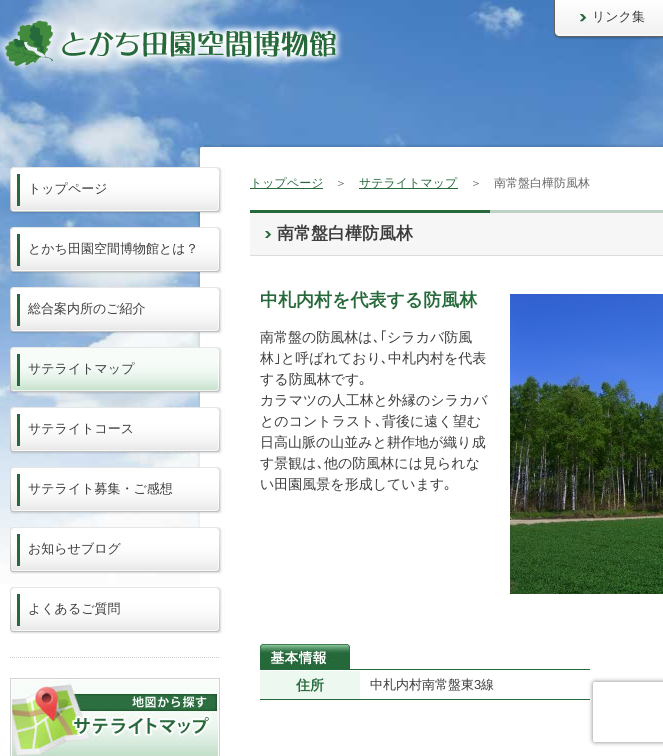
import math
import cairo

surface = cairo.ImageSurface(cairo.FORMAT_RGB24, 663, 756)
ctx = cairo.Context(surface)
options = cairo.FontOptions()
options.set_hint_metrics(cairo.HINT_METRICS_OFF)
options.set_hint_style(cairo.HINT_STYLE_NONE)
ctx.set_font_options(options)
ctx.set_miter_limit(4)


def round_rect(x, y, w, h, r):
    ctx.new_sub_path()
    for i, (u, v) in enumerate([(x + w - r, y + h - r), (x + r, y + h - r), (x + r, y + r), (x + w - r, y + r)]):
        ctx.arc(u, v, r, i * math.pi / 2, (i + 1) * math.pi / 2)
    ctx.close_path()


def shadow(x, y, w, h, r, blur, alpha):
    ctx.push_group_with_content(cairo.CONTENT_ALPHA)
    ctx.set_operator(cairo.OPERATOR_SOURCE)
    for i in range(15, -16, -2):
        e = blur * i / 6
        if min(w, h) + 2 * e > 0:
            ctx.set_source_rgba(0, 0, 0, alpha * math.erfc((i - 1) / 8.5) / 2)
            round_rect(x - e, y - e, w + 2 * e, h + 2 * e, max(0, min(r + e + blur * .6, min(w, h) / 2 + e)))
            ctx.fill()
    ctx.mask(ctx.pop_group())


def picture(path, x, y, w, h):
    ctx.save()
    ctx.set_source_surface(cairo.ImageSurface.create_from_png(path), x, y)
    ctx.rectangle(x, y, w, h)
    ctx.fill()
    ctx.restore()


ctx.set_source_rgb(1, 1, 1)
ctx.paint()
picture("img1.png", 0, 0, 663, 586)
picture("img2.png", 0, 15, 344, 57)
picture("img3.png", 553, 0, 110, 40)
ctx.select_font_face("WenQuanYi Zen Hei Medium")
ctx.set_font_size(13)
ctx.set_source_rgb(0.235, 0.235, 0.235)
ctx.move_to(592, 21)
ctx.show_text("リンク集")
picture("img4.png", 197, 144, 466, 442)
picture("img5.png", 10, 167, 215, 47)
ctx.move_to(28, 193)
ctx.show_text("トップページ")
picture("img6.png", 10, 227, 215, 47)
ctx.move_to(28, 253)
ctx.show_text("とかち田園空間博物館とは？")
picture("img7.png", 10, 287, 215, 47)
ctx.move_to(28, 313)
ctx.show_text("総合案内所のご紹介")
picture("img8.png", 10, 347, 212, 47)
ctx.move_to(28, 373)
ctx.show_text("サテライトマップ")
picture("img9.png", 10, 407, 215, 47)
ctx.move_to(28, 433)
ctx.show_text("サテライトコース")
picture("img10.png", 10, 467, 215, 47)
ctx.move_to(28, 493)
ctx.show_text("サテライト募集・ご感想")
picture("img11.png", 10, 527, 215, 47)
ctx.move_to(28, 553)
ctx.show_text("お知らせブログ")
picture("img12.png", 10, 587, 215, 47)
ctx.move_to(28, 613)
ctx.show_text("よくあるご質問")
ctx.new_path()
ctx.move_to(10, 657.5)
ctx.line_to(220, 657.5)
ctx.set_source_rgb(0.8, 0.8, 0.8)
ctx.set_line_width(1)
ctx.set_dash([1, 1])
ctx.stroke()
picture("img13.png", 10, 678, 210, 78)
ctx.set_source_rgb(0.149, 0.412, 0.227)
ctx.rectangle(250, 188, 73, 1)
ctx.fill()
ctx.set_font_size(12)
ctx.move_to(250, 187)
ctx.show_text("トップページ")
ctx.set_source_rgb(0.4, 0.4, 0.4)
ctx.move_to(335, 187)
ctx.show_text("＞")
ctx.set_source_rgb(0.149, 0.412, 0.227)
ctx.rectangle(359, 188, 99, 1)
ctx.fill()
ctx.move_to(359, 187)
ctx.show_text("サテライトマップ")
ctx.set_source_rgb(0.4, 0.4, 0.4)
ctx.move_to(470, 187)
ctx.show_text("＞　南常盤白樺防風林")
picture("img14.png", 250, 210, 413, 3)
ctx.set_source_rgb(0.961, 0.961, 0.961)
ctx.rectangle(250, 213, 413, 42)
ctx.fill()
picture("img15.png", 265, 231, 6, 7)
ctx.set_source_rgb(0.863, 0.863, 0.863)
ctx.rectangle(250, 255, 413, 1)
ctx.fill()
ctx.select_font_face("WenQuanYi Zen Hei", cairo.FONT_SLANT_NORMAL, cairo.FONT_WEIGHT_BOLD)
ctx.set_font_size(17)
ctx.set_source_rgb(0.235, 0.235, 0.235)
ctx.move_to(277, 239)
ctx.show_text("南常盤白樺防風林")
ctx.set_font_size(18)
ctx.set_source_rgb(0.149, 0.412, 0.227)
ctx.move_to(260, 306)
ctx.show_text("中札内村を代表する防風林")
picture("img16.png", 510, 294, 153, 300)
ctx.select_font_face("WenQuanYi Zen Hei Medium")
ctx.set_font_size(14)
ctx.set_source_rgb(0.235, 0.235, 0.235)
ctx.move_to(260, 342)
ctx.show_text("南常盤の防風林は")
ctx.select_font_face("IPAPGothic")
ctx.move_to(373, 342)
ctx.show_text("､｢")
ctx.select_font_face("WenQuanYi Zen Hei Medium")
ctx.move_to(387, 342)
ctx.show_text("シラカバ防風")
ctx.move_to(260, 363)
ctx.show_text("林")
ctx.select_font_face("IPAPGothic")
ctx.move_to(274, 363)
ctx.show_text("｣")
ctx.select_font_face("WenQuanYi Zen Hei Medium")
ctx.move_to(281, 363)
ctx.show_text("と呼ばれており")
ctx.select_font_face("IPAPGothic")
ctx.move_to(381, 363)
ctx.show_text("､")
ctx.select_font_face("WenQuanYi Zen Hei Medium")
ctx.move_to(388, 363)
ctx.show_text("中札内村を代表")
ctx.move_to(260, 384)
ctx.show_text("する防風林です")
ctx.select_font_face("IPAPGothic")
ctx.move_to(359, 384)
ctx.show_text("｡")
ctx.select_font_face("WenQuanYi Zen Hei Medium")
ctx.move_to(260, 405)
ctx.show_text("カラマツの人工林と外縁のシラカバ")
ctx.move_to(260, 426)
ctx.show_text("とのコントラスト")
ctx.select_font_face("IPAPGothic")
ctx.move_to(375, 426)
ctx.show_text("､")
ctx.select_font_face("WenQuanYi Zen Hei Medium")
ctx.move_to(382, 426)
ctx.show_text("背後に遠く望む")
ctx.move_to(260, 447)
ctx.show_text("日高山脈の山並みと耕作地が織り成")
ctx.move_to(260, 468)
ctx.show_text("す景観は")
ctx.select_font_face("IPAPGothic")
ctx.move_to(317, 468)
ctx.show_text("､")
ctx.select_font_face("WenQuanYi Zen Hei Medium")
ctx.move_to(324, 468)
ctx.show_text("他の防風林には見られな")
ctx.move_to(260, 489)
ctx.show_text("い田園風景を形成しています")
ctx.select_font_face("IPAPGothic")
ctx.move_to(444, 489)
ctx.show_text("｡")
picture("img17.png", 260, 644, 90, 25)
ctx.set_source_rgb(0.149, 0.412, 0.227)
ctx.rectangle(260, 669, 330, 1)
ctx.fill()
ctx.set_source_rgb(0.929, 0.969, 0.941)
ctx.rectangle(260, 671, 100, 28)
ctx.fill()
ctx.set_source_rgb(0.149, 0.412, 0.227)
ctx.rectangle(260, 699, 330, 1)
ctx.fill()
ctx.select_font_face("WenQuanYi Zen Hei", cairo.FONT_SLANT_NORMAL, cairo.FONT_WEIGHT_BOLD)
ctx.move_to(296, 690)
ctx.show_text("住所")
ctx.select_font_face("WenQuanYi Zen Hei Medium")
ctx.set_font_size(13)
ctx.set_source_rgb(0.235, 0.235, 0.235)
ctx.move_to(370, 689)
ctx.show_text("中札内村南常盤東")
ctx.select_font_face("Liberation Sans")
ctx.move_to(474, 689)
ctx.show_text("3")
ctx.select_font_face("WenQuanYi Zen Hei Medium")
ctx.move_to(481, 689)
ctx.show_text("線")
ctx.save()
ctx.set_fill_rule(cairo.FILL_RULE_EVEN_ODD)
ctx.new_path()
ctx.move_to(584, 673)
ctx.line_to(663, 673)
ctx.line_to(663, 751)
ctx.line_to(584, 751)
ctx.close_path()
ctx.move_to(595, 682)
ctx.line_to(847, 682)
ctx.curve_to(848, 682, 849, 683, 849, 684)
ctx.line_to(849, 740)
ctx.curve_to(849, 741, 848, 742, 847, 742)
ctx.line_to(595, 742)
ctx.curve_to(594, 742, 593, 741, 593, 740)
ctx.line_to(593, 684)
ctx.curve_to(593, 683, 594, 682, 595, 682)
ctx.close_path()
ctx.clip()
ctx.set_source_rgb(0.502, 0.502, 0.502)
shadow(593, 682, 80, 60, 2, 2.5, 1)
ctx.restore()
surface.write_to_png("page.png")
